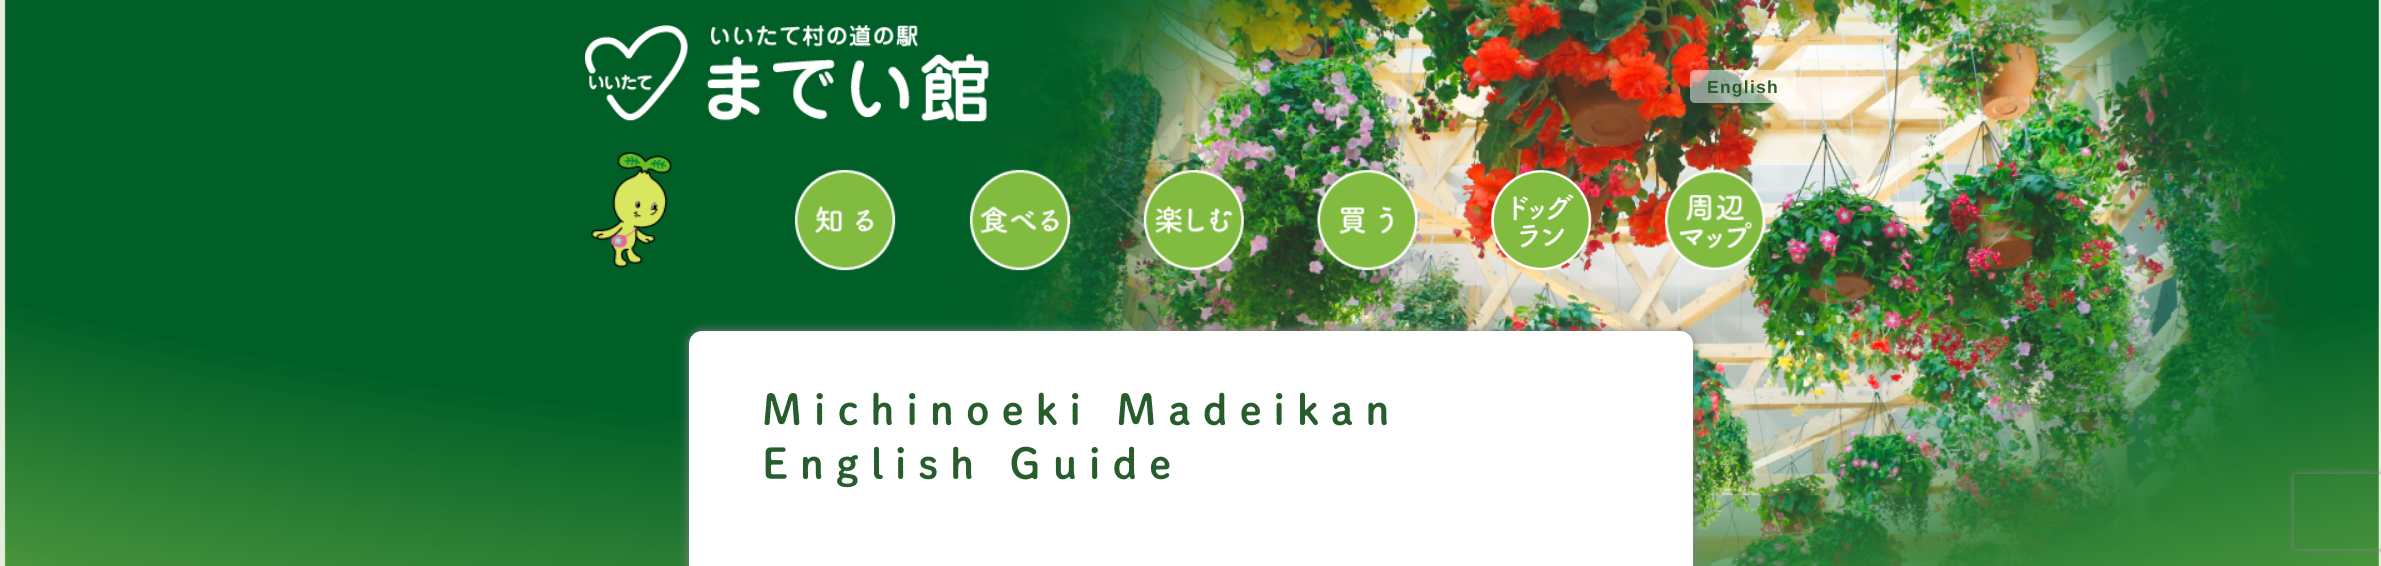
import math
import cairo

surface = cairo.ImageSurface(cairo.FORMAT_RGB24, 2381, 566)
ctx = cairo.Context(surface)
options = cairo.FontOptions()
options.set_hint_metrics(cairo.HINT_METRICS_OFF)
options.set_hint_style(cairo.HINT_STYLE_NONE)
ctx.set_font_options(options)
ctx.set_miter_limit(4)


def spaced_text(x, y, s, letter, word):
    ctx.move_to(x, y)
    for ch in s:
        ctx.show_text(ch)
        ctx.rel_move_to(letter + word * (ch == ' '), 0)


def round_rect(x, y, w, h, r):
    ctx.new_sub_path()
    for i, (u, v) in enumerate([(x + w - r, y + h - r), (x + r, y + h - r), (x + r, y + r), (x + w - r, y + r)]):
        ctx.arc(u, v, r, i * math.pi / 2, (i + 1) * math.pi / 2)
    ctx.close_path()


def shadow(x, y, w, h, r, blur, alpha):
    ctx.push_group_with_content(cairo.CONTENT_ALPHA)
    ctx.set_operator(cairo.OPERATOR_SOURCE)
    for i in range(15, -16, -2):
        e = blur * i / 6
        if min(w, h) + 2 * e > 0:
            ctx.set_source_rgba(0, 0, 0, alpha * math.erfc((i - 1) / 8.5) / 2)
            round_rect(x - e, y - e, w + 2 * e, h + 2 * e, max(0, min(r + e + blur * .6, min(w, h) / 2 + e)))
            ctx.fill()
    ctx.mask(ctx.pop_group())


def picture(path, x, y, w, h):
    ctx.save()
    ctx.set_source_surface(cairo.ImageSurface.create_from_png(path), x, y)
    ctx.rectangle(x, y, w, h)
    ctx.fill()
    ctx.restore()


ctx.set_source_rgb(0.89, 0.937, 0.855)
ctx.paint()
picture("img1.png", 4, 0, 2375, 566)
picture("img2.png", 585, 25, 404, 97)
ctx.set_source_rgba(1, 1, 1, 0.5)
round_rect(1690, 70, 106, 33, 5)
ctx.fill()
ctx.select_font_face("Liberation Sans", cairo.FONT_SLANT_NORMAL, cairo.FONT_WEIGHT_BOLD)
ctx.set_font_size(17.5)
ctx.set_source_rgb(0.153, 0.365, 0.176)
spaced_text(1707, 93, "English", 1.25, 0)
picture("img3.png", 591, 151, 81, 117)
picture("img4.png", 794, 169, 102, 102)
picture("img5.png", 969, 169, 102, 102)
picture("img6.png", 1143, 169, 101, 102)
picture("img7.png", 1317, 169, 101, 102)
picture("img8.png", 1490, 170, 102, 101)
picture("img9.png", 1664, 169, 102, 101)
ctx.set_source_rgb(0.502, 0.502, 0.502)
shadow(689, 331, 1004, 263, 13, 5, 1)
ctx.set_source_rgb(1, 1, 1)
round_rect(689, 331, 1004, 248, 13)
ctx.fill()
ctx.select_font_face("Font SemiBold")
ctx.set_font_size(41.25)
ctx.set_source_rgb(0.153, 0.365, 0.176)
spaced_text(762, 425, "Michinoeki Madeikan", 12.5, 0)
spaced_text(762, 479, "English Guide", 12.5, 0)
ctx.save()
ctx.set_fill_rule(cairo.FILL_RULE_EVEN_ODD)
ctx.new_path()
ctx.move_to(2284, 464)
ctx.line_to(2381, 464)
ctx.line_to(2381, 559)
ctx.line_to(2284, 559)
ctx.close_path()
ctx.move_to(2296.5, 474)
ctx.line_to(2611.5, 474)
ctx.curve_to(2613, 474, 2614, 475, 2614, 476.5)
ctx.line_to(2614, 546.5)
ctx.curve_to(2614, 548, 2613, 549, 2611.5, 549)
ctx.line_to(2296.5, 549)
ctx.curve_to(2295, 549, 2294, 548, 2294, 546.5)
ctx.line_to(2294, 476.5)
ctx.curve_to(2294, 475, 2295, 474, 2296.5, 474)
ctx.close_path()
ctx.clip()
ctx.set_source_rgb(0.502, 0.502, 0.502)
shadow(2294, 474, 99, 75, 2.5, 3, 1)
ctx.restore()
surface.write_to_png("page.png")
